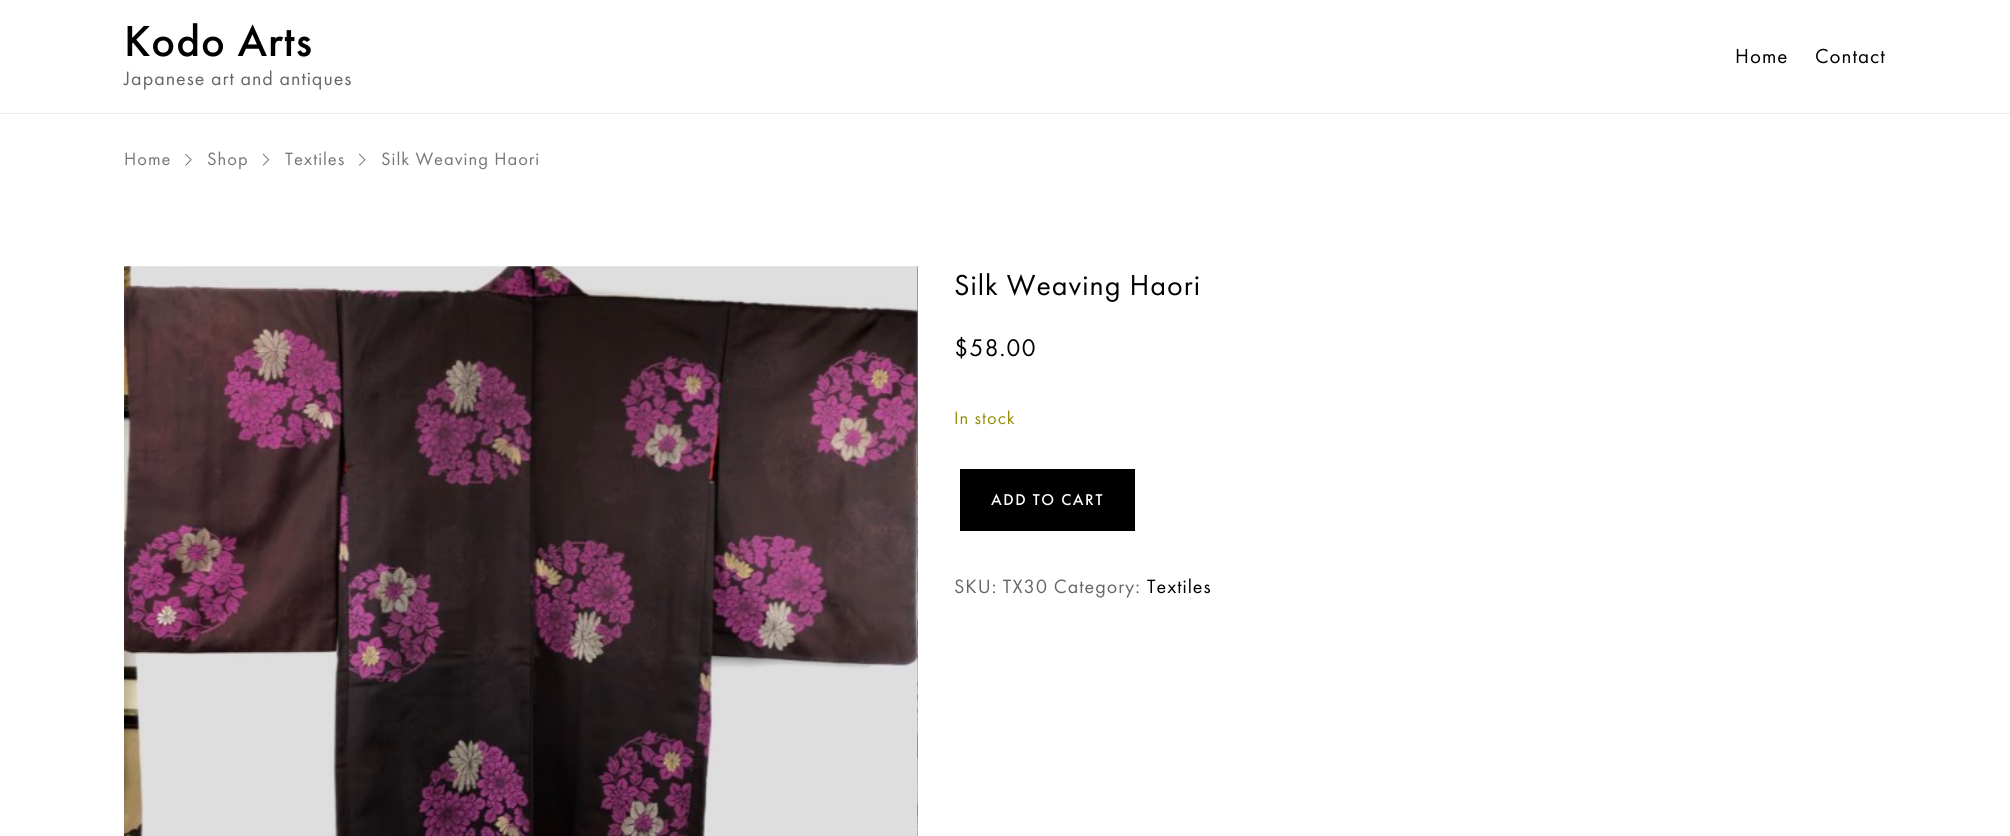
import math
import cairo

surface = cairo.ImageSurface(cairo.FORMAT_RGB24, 2010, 836)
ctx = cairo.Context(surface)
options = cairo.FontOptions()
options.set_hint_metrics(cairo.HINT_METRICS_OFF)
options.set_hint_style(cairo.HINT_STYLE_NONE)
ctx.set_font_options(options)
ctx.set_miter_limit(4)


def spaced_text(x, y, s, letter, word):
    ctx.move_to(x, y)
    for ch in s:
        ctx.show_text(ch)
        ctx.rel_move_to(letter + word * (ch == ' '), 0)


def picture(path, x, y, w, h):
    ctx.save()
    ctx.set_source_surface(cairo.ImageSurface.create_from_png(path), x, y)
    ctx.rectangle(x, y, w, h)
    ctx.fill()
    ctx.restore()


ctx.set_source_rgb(1, 1, 1)
ctx.paint()
ctx.set_source_rgb(0.922, 0.922, 0.922)
ctx.rectangle(0, 113, 2010, 1)
ctx.fill()
ctx.select_font_face("Futura PT Medium")
ctx.set_font_size(45)
ctx.set_source_rgb(0, 0, 0)
spaced_text(124, 56, "Kodo Arts", 1, 0)
ctx.select_font_face("Futura PT")
ctx.set_font_size(20)
ctx.set_source_rgb(0.4, 0.4, 0.4)
spaced_text(124, 85, "Japanese art and antiques", 1, 0)
ctx.set_font_size(21)
ctx.set_source_rgb(0, 0, 0)
spaced_text(1735, 63, "Home", 1, 0)
spaced_text(1815, 63, "Contact", 1, 0)
ctx.set_font_size(18.5)
ctx.set_source_rgb(0.463, 0.463, 0.463)
spaced_text(124, 165, "Home", 1, 0)
picture("img1.png", 185, 153, 7, 13)
spaced_text(207, 165, "Shop", 1, 0)
picture("img2.png", 262, 153, 8, 13)
spaced_text(285, 165, "Textiles", 1, 0)
picture("img3.png", 359, 153, 7, 13)
spaced_text(381, 165, "Silk Weaving Haori", 1, 0)
picture("img4.png", 124, 266, 794, 570)
picture("img5.png", 917, 266, 1, 570)
ctx.set_font_size(30)
ctx.set_source_rgb(0, 0, 0)
spaced_text(954, 295, "Silk Weaving Haori", 1, 0)
ctx.set_font_size(25)
spaced_text(954, 356, "$58.00", 1, 0)
ctx.set_font_size(18.5)
ctx.set_source_rgb(0.584, 0.557, 0.035)
spaced_text(954, 424, "In stock", 1, 0)
ctx.set_source_rgb(0, 0, 0)
ctx.rectangle(960, 469, 175, 62)
ctx.fill()
ctx.select_font_face("Futura PT Medium")
ctx.set_font_size(16.25)
ctx.set_source_rgb(1, 1, 1)
spaced_text(991, 505, "ADD TO CART", 1.6, 0)
ctx.select_font_face("Futura PT")
ctx.set_font_size(20)
ctx.set_source_rgb(0.4, 0.4, 0.4)
spaced_text(954, 593, "SKU: TX30 Category:", 1, 0)
ctx.set_source_rgb(0, 0, 0)
spaced_text(1147, 593, "Textiles", 1, 0)
surface.write_to_png("page.png")
